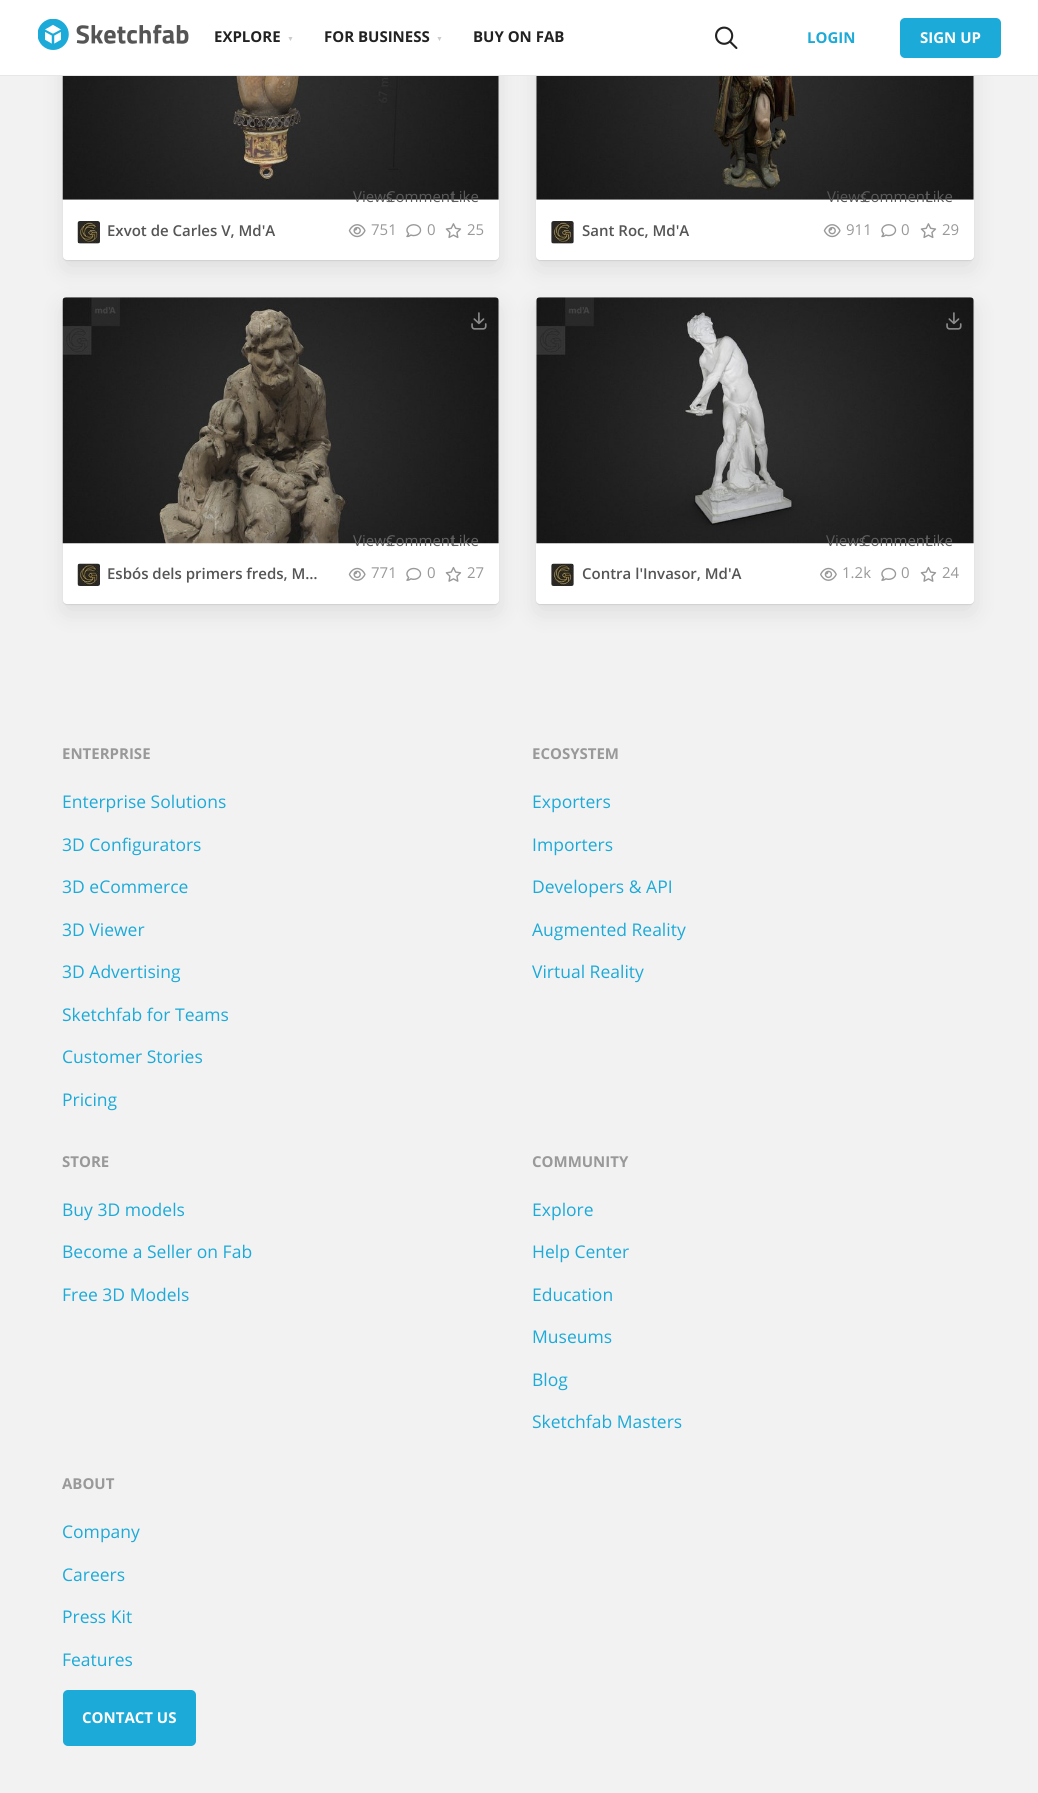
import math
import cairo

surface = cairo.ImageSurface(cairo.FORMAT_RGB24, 1038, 1793)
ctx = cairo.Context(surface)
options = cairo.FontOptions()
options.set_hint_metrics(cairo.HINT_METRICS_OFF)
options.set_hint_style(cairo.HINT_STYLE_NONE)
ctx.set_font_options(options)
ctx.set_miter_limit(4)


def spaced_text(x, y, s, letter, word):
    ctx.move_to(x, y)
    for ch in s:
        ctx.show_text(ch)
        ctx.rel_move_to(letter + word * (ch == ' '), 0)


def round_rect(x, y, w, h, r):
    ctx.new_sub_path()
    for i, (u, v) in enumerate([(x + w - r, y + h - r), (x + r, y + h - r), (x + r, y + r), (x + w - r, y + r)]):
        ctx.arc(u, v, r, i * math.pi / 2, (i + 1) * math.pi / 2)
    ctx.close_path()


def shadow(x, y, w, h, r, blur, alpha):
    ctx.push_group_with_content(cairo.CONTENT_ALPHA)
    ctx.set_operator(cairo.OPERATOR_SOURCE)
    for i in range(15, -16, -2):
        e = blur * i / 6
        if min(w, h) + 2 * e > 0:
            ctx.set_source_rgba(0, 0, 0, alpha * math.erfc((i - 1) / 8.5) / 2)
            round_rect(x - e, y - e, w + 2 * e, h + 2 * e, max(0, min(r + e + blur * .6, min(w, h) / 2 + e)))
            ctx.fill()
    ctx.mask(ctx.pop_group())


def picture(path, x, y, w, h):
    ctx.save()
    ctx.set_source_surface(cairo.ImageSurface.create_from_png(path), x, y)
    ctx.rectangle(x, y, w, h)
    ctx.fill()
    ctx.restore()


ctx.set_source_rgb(0.949, 0.949, 0.949)
ctx.paint()
ctx.set_source_rgb(0.133, 0.133, 0.133)
shadow(63, -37, 436, 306, 4, 11, 0.1)
shadow(63, -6, 436, 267, 4, 0.5, 0.1)
ctx.set_source_rgb(1, 1, 1)
round_rect(63, -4, 436, 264, 4)
ctx.fill()
ctx.set_source_rgb(0.133, 0.133, 0.133)
shadow(536, -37, 438, 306, 4, 11, 0.1)
shadow(536, -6, 438, 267, 4, 0.5, 0.1)
ctx.set_source_rgb(1, 1, 1)
round_rect(536, -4, 438, 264, 4)
ctx.fill()
ctx.rectangle(0, 0, 1038, 75)
ctx.fill()
ctx.set_source_rgb(0.906, 0.906, 0.906)
ctx.rectangle(0, 75, 1038, 1)
ctx.fill()
picture("img1.png", 38, 19, 151, 31)
ctx.select_font_face("Open Sans", cairo.FONT_SLANT_NORMAL, cairo.FONT_WEIGHT_BOLD)
ctx.set_font_size(15)
ctx.set_source_rgb(0.133, 0.133, 0.133)
ctx.move_to(214, 42)
ctx.show_text("EXPLORE")
ctx.select_font_face("Liberation Sans")
ctx.set_font_size(7)
ctx.set_source_rgb(0.8, 0.8, 0.8)
spaced_text(287, 41, "▼", 6, 0)
ctx.select_font_face("Open Sans", cairo.FONT_SLANT_NORMAL, cairo.FONT_WEIGHT_BOLD)
ctx.set_font_size(15)
ctx.set_source_rgb(0.133, 0.133, 0.133)
ctx.move_to(324, 42)
ctx.show_text("FOR BUSINESS")
ctx.select_font_face("Liberation Sans")
ctx.set_font_size(7)
ctx.set_source_rgb(0.8, 0.8, 0.8)
spaced_text(436, 41, "▼", 6, 0)
ctx.select_font_face("Open Sans", cairo.FONT_SLANT_NORMAL, cairo.FONT_WEIGHT_BOLD)
ctx.set_font_size(15)
ctx.set_source_rgb(0.133, 0.133, 0.133)
ctx.move_to(473, 42)
ctx.show_text("BUY ON FAB")
picture("img2.png", 715, 26, 23, 23)
ctx.set_source_rgb(0.11, 0.667, 0.851)
ctx.move_to(807, 43)
ctx.show_text("LOGIN")
round_rect(900, 18, 101, 40, 5)
ctx.fill()
ctx.set_source_rgb(1, 1, 1)
ctx.move_to(920, 43)
ctx.show_text("SIGN UP")
picture("img3.png", 62, 76, 437, 124)
ctx.set_source_rgb(0.906, 0.906, 0.906)
round_rect(78, 221, 22, 23, 2.5)
ctx.fill()
picture("img4.png", 77, 221, 23, 23)
ctx.select_font_face("Open Sans SemiBold")
ctx.set_source_rgb(0.333, 0.333, 0.333)
ctx.move_to(107, 236)
ctx.show_text("Exvot de Carles V, Md'A")
ctx.select_font_face("Open Sans")
ctx.set_source_rgb(0.357, 0.357, 0.357)
ctx.move_to(353, 202)
ctx.show_text("Views")
picture("img5.png", 348, 224, 18, 14)
ctx.set_source_rgb(0.6, 0.6, 0.6)
ctx.move_to(371, 235)
ctx.show_text("751")
ctx.set_source_rgb(0.357, 0.357, 0.357)
ctx.move_to(386, 202)
ctx.show_text("Comment")
picture("img6.png", 406, 224, 16, 14)
ctx.set_source_rgb(0.6, 0.6, 0.6)
ctx.move_to(427, 235)
ctx.show_text("0")
ctx.set_source_rgb(0.357, 0.357, 0.357)
ctx.move_to(451, 202)
ctx.show_text("Like")
picture("img7.png", 445, 223, 17, 16)
ctx.set_source_rgb(0.6, 0.6, 0.6)
ctx.move_to(467, 235)
ctx.show_text("25")
picture("img8.png", 536, 76, 438, 124)
ctx.set_source_rgb(0.906, 0.906, 0.906)
round_rect(551, 221, 23, 23, 2.5)
ctx.fill()
picture("img9.png", 551, 221, 23, 23)
ctx.select_font_face("Open Sans SemiBold")
ctx.set_source_rgb(0.333, 0.333, 0.333)
ctx.move_to(582, 236)
ctx.show_text("Sant Roc, Md'A")
ctx.select_font_face("Open Sans")
ctx.move_to(827, 202)
ctx.show_text("Views")
picture("img5.png", 823, 224, 18, 14)
ctx.set_source_rgb(0.6, 0.6, 0.6)
ctx.move_to(846, 235)
ctx.show_text("911")
ctx.set_source_rgb(0.357, 0.357, 0.357)
ctx.move_to(861, 202)
ctx.show_text("Comment")
picture("img6.png", 881, 224, 16, 14)
ctx.set_source_rgb(0.6, 0.6, 0.6)
ctx.move_to(901, 235)
ctx.show_text("0")
ctx.set_source_rgb(0.357, 0.357, 0.357)
ctx.move_to(925, 202)
ctx.show_text("Like")
picture("img7.png", 920, 223, 17, 16)
ctx.set_source_rgb(0.6, 0.6, 0.6)
ctx.move_to(942, 235)
ctx.show_text("29")
ctx.set_source_rgb(0.133, 0.133, 0.133)
shadow(63, 306, 436, 307, 4, 11, 0.1)
shadow(63, 299, 436, 306, 4, 0.5, 0.1)
ctx.set_source_rgb(1, 1, 1)
round_rect(63, 298, 436, 306, 4)
ctx.fill()
picture("img10.png", 62, 297, 437, 247)
picture("img11.png", 471, 312, 16, 18)
picture("img12.png", 77, 563, 23, 23)
ctx.select_font_face("Open Sans SemiBold")
ctx.set_source_rgb(0.333, 0.333, 0.333)
ctx.move_to(107, 579)
ctx.show_text("Esbós dels primers freds, M…")
ctx.select_font_face("Open Sans")
ctx.set_source_rgb(0.38, 0.38, 0.38)
ctx.move_to(353, 546)
ctx.show_text("Views")
picture("img13.png", 348, 567, 18, 14)
ctx.set_source_rgb(0.6, 0.6, 0.6)
ctx.move_to(371, 578)
ctx.show_text("771")
ctx.set_source_rgb(0.38, 0.38, 0.38)
ctx.move_to(386, 546)
ctx.show_text("Comment")
picture("img14.png", 406, 567, 16, 14)
ctx.set_source_rgb(0.6, 0.6, 0.6)
ctx.move_to(427, 578)
ctx.show_text("0")
ctx.set_source_rgb(0.38, 0.38, 0.38)
ctx.move_to(451, 546)
ctx.show_text("Like")
picture("img15.png", 445, 566, 17, 16)
ctx.set_source_rgb(0.6, 0.6, 0.6)
ctx.move_to(467, 578)
ctx.show_text("27")
ctx.set_source_rgb(0.133, 0.133, 0.133)
shadow(536, 306, 438, 307, 4, 11, 0.1)
shadow(536, 299, 438, 306, 4, 0.5, 0.1)
ctx.set_source_rgb(1, 1, 1)
round_rect(536, 298, 438, 306, 4)
ctx.fill()
picture("img16.png", 536, 297, 438, 247)
picture("img17.png", 946, 312, 16, 18)
ctx.set_source_rgb(0.906, 0.906, 0.906)
round_rect(551, 564, 23, 22, 2.5)
ctx.fill()
picture("img18.png", 551, 563, 23, 23)
ctx.select_font_face("Open Sans SemiBold")
ctx.set_source_rgb(0.333, 0.333, 0.333)
ctx.move_to(582, 579)
ctx.show_text("Contra l'Invasor, Md'A")
ctx.select_font_face("Open Sans")
ctx.set_source_rgb(0.357, 0.357, 0.357)
ctx.move_to(826, 546)
ctx.show_text("Views")
picture("img19.png", 820, 567, 17, 14)
ctx.set_source_rgb(0.6, 0.6, 0.6)
ctx.move_to(842, 578)
ctx.show_text("1.2k")
ctx.set_source_rgb(0.38, 0.38, 0.38)
ctx.move_to(861, 546)
ctx.show_text("Comment")
picture("img14.png", 881, 567, 16, 14)
ctx.set_source_rgb(0.6, 0.6, 0.6)
ctx.move_to(901, 578)
ctx.show_text("0")
ctx.set_source_rgb(0.38, 0.38, 0.38)
ctx.move_to(925, 546)
ctx.show_text("Like")
picture("img15.png", 920, 566, 17, 16)
ctx.set_source_rgb(0.6, 0.6, 0.6)
ctx.move_to(942, 578)
ctx.show_text("24")
ctx.select_font_face("Open Sans", cairo.FONT_SLANT_NORMAL, cairo.FONT_WEIGHT_BOLD)
ctx.move_to(62, 759)
ctx.show_text("ENTERPRISE")
ctx.select_font_face("Open Sans")
ctx.set_font_size(17.5)
ctx.set_source_rgb(0.11, 0.667, 0.851)
ctx.move_to(62, 808)
ctx.show_text("Enterprise Solutions")
ctx.move_to(62, 851)
ctx.show_text("3D Configurators")
ctx.move_to(62, 893)
ctx.show_text("3D eCommerce")
ctx.move_to(62, 936)
ctx.show_text("3D Viewer")
ctx.move_to(62, 978)
ctx.show_text("3D Advertising")
ctx.move_to(62, 1021)
ctx.show_text("Sketchfab for Teams")
ctx.move_to(62, 1063)
ctx.show_text("Customer Stories")
ctx.move_to(62, 1106)
ctx.show_text("Pricing")
ctx.select_font_face("Open Sans", cairo.FONT_SLANT_NORMAL, cairo.FONT_WEIGHT_BOLD)
ctx.set_font_size(15)
ctx.set_source_rgb(0.6, 0.6, 0.6)
ctx.move_to(532, 759)
ctx.show_text("ECOSYSTEM")
ctx.select_font_face("Open Sans")
ctx.set_font_size(17.5)
ctx.set_source_rgb(0.11, 0.667, 0.851)
ctx.move_to(532, 808)
ctx.show_text("Exporters")
ctx.move_to(532, 851)
ctx.show_text("Importers")
ctx.move_to(532, 893)
ctx.show_text("Developers & API")
ctx.move_to(532, 936)
ctx.show_text("Augmented Reality")
ctx.move_to(532, 978)
ctx.show_text("Virtual Reality")
ctx.select_font_face("Open Sans", cairo.FONT_SLANT_NORMAL, cairo.FONT_WEIGHT_BOLD)
ctx.set_font_size(15)
ctx.set_source_rgb(0.6, 0.6, 0.6)
ctx.move_to(62, 1167)
ctx.show_text("STORE")
ctx.select_font_face("Open Sans")
ctx.set_font_size(17.5)
ctx.set_source_rgb(0.11, 0.667, 0.851)
ctx.move_to(62, 1216)
ctx.show_text("Buy 3D models")
ctx.move_to(62, 1258)
ctx.show_text("Become a Seller on Fab")
ctx.move_to(62, 1301)
ctx.show_text("Free 3D Models")
ctx.select_font_face("Open Sans", cairo.FONT_SLANT_NORMAL, cairo.FONT_WEIGHT_BOLD)
ctx.set_font_size(15)
ctx.set_source_rgb(0.6, 0.6, 0.6)
ctx.move_to(532, 1167)
ctx.show_text("COMMUNITY")
ctx.select_font_face("Open Sans")
ctx.set_font_size(17.5)
ctx.set_source_rgb(0.11, 0.667, 0.851)
ctx.move_to(532, 1216)
ctx.show_text("Explore")
ctx.move_to(532, 1258)
ctx.show_text("Help Center")
ctx.move_to(532, 1301)
ctx.show_text("Education")
ctx.move_to(532, 1343)
ctx.show_text("Museums")
ctx.move_to(532, 1386)
ctx.show_text("Blog")
ctx.move_to(532, 1428)
ctx.show_text("Sketchfab Masters")
ctx.select_font_face("Open Sans", cairo.FONT_SLANT_NORMAL, cairo.FONT_WEIGHT_BOLD)
ctx.set_font_size(15)
ctx.set_source_rgb(0.6, 0.6, 0.6)
ctx.move_to(62, 1489)
ctx.show_text("ABOUT")
ctx.select_font_face("Open Sans")
ctx.set_font_size(17.5)
ctx.set_source_rgb(0.11, 0.667, 0.851)
ctx.move_to(62, 1538)
ctx.show_text("Company")
ctx.move_to(62, 1581)
ctx.show_text("Careers")
ctx.move_to(62, 1623)
ctx.show_text("Press Kit")
ctx.move_to(62, 1666)
ctx.show_text("Features")
round_rect(63, 1690, 133, 56, 5)
ctx.fill()
ctx.select_font_face("Open Sans", cairo.FONT_SLANT_NORMAL, cairo.FONT_WEIGHT_BOLD)
ctx.set_font_size(15)
ctx.set_source_rgb(1, 1, 1)
ctx.move_to(82, 1723)
ctx.show_text("CONTACT US")
surface.write_to_png("page.png")
